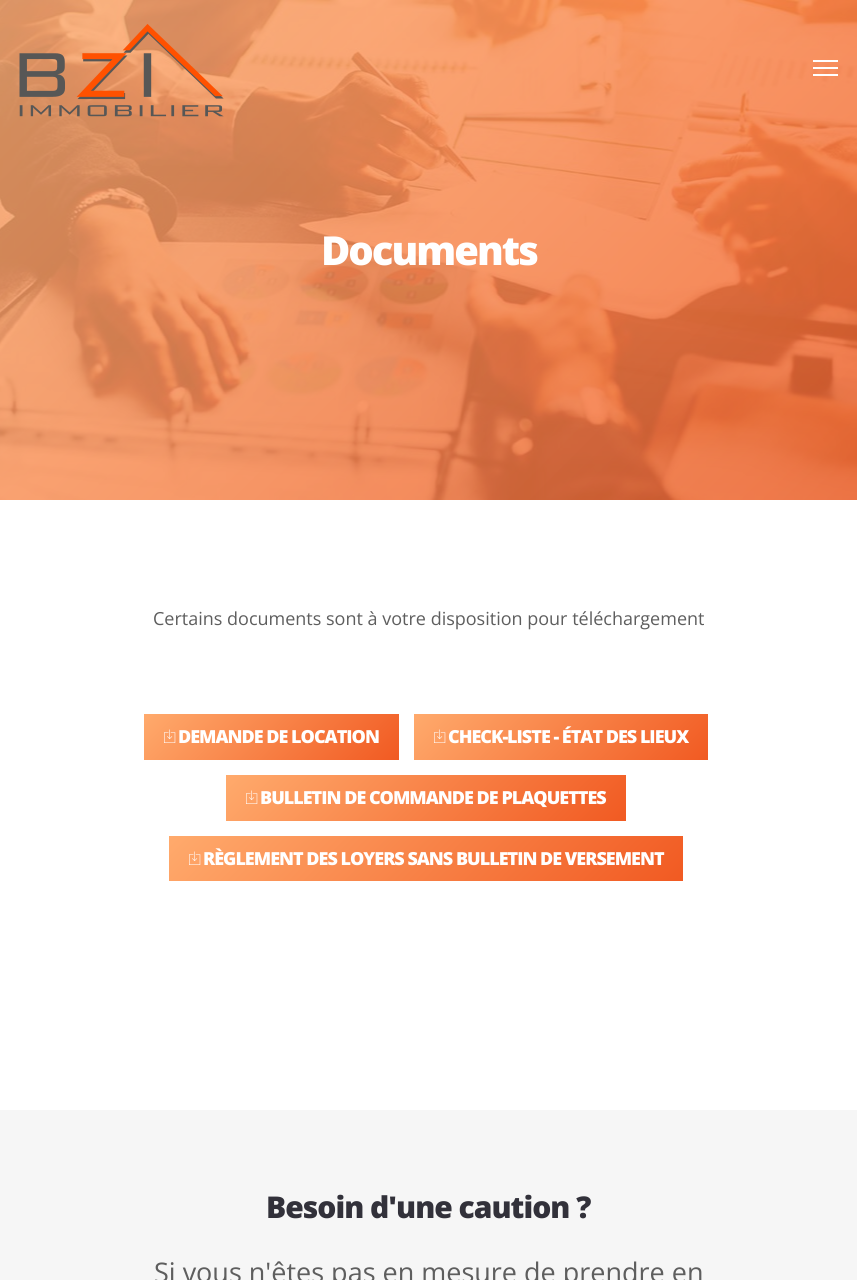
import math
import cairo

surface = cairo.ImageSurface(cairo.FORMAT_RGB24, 857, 1280)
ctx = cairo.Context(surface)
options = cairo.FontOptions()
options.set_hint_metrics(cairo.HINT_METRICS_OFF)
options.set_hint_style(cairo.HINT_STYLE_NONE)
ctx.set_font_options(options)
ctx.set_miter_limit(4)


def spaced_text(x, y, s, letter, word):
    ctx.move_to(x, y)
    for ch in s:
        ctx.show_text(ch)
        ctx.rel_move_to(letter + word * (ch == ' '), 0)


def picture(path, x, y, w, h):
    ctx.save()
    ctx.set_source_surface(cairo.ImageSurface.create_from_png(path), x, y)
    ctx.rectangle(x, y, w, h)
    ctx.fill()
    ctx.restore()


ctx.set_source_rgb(1, 1, 1)
ctx.paint()
picture("img2.png", 0, 0, 857, 500)
picture("img1.png", 19, 24, 205, 93)
ctx.set_source_rgb(1, 1, 1)
ctx.rectangle(813, 67, 25, 2)
ctx.fill()
ctx.rectangle(813, 60, 25, 2)
ctx.fill()
ctx.rectangle(813, 74, 25, 2)
ctx.fill()
ctx.select_font_face("Open Sans ExtraBold")
ctx.set_font_size(40)
spaced_text(321, 265, "Documents", -2, 0)
ctx.select_font_face("Open Sans")
ctx.set_font_size(18)
ctx.set_source_rgb(0.369, 0.369, 0.369)
ctx.move_to(153, 625)
ctx.show_text("Certains documents sont à votre disposition pour téléchargement")
gradient = cairo.LinearGradient(196, 662, 347, 812)
gradient.add_color_stop_rgba(0, 1, 0.667, 0.424, 1)
gradient.add_color_stop_rgba(1, 0.945, 0.353, 0.133, 1)
ctx.set_source(gradient)
ctx.rectangle(144, 714, 255, 46)
ctx.fill()
picture("img3.png", 164, 729, 12, 14)
ctx.select_font_face("Open Sans ExtraBold")
ctx.set_source_rgb(1, 1, 1)
spaced_text(178, 743, "DEMANDE DE LOCATION", -1, 0)
gradient = cairo.LinearGradient(476, 652, 646, 822)
gradient.add_color_stop_rgba(0, 1, 0.667, 0.424, 1)
gradient.add_color_stop_rgba(1, 0.945, 0.353, 0.133, 1)
ctx.set_source(gradient)
ctx.rectangle(414, 714, 294, 46)
ctx.fill()
picture("img4.png", 434, 729, 12, 14)
ctx.set_source_rgb(1, 1, 1)
spaced_text(448, 743, "CHECK-LISTE - ÉTAT DES LIEUX", -1, 0)
gradient = cairo.LinearGradient(315, 687, 538, 910)
gradient.add_color_stop_rgba(0, 1, 0.667, 0.424, 1)
gradient.add_color_stop_rgba(1, 0.945, 0.353, 0.133, 1)
ctx.set_source(gradient)
ctx.rectangle(226, 775, 400, 46)
ctx.fill()
picture("img5.png", 246, 790, 12, 14)
ctx.set_source_rgb(1, 1, 1)
spaced_text(260, 804, "BULLETIN DE COMMANDE DE PLAQUETTES", -1, 0)
gradient = cairo.LinearGradient(286, 719, 566, 998)
gradient.add_color_stop_rgba(0, 1, 0.667, 0.424, 1)
gradient.add_color_stop_rgba(1, 0.945, 0.353, 0.133, 1)
ctx.set_source(gradient)
ctx.rectangle(169, 836, 514, 45)
ctx.fill()
picture("img6.png", 189, 851, 12, 14)
ctx.set_source_rgb(1, 1, 1)
spaced_text(203, 865, "RÈGLEMENT DES LOYERS SANS BULLETIN DE VERSEMENT", -1, 0)
ctx.set_source_rgb(0.961, 0.961, 0.961)
ctx.rectangle(0, 1110, 857, 170)
ctx.fill()
ctx.set_font_size(30)
ctx.set_source_rgb(0.196, 0.192, 0.227)
spaced_text(266, 1218, "Besoin d'une caution ?", -1, 0)
ctx.select_font_face("Open Sans")
ctx.set_font_size(27)
ctx.set_source_rgb(0.369, 0.369, 0.369)
ctx.move_to(154, 1282)
ctx.show_text("Si vous n'êtes pas en mesure de prendre en")
surface.write_to_png("page.png")
